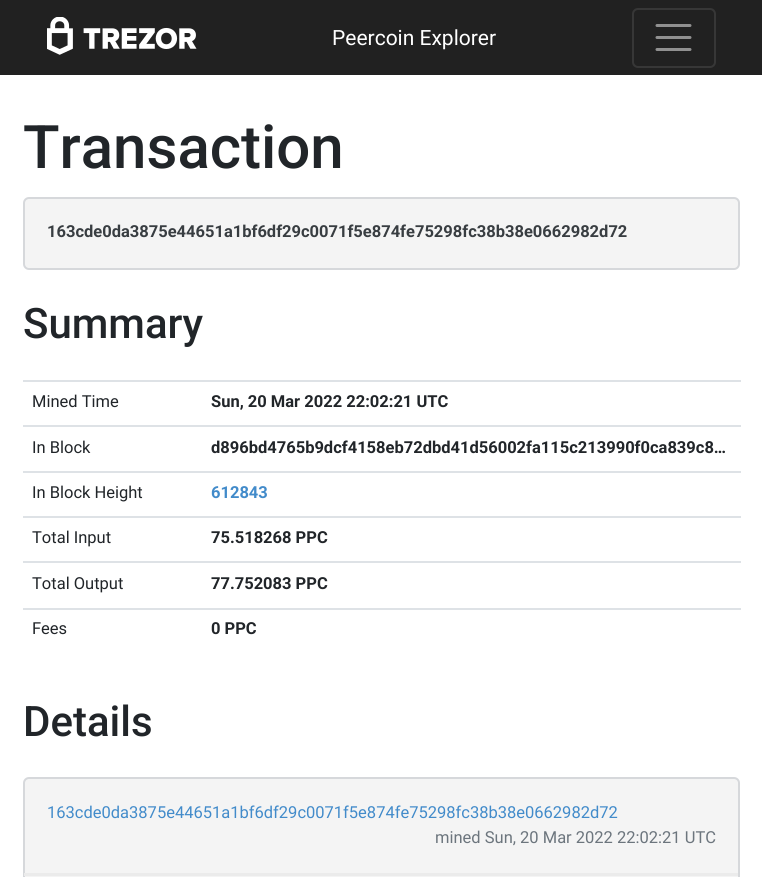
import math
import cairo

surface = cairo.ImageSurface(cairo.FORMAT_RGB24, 762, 877)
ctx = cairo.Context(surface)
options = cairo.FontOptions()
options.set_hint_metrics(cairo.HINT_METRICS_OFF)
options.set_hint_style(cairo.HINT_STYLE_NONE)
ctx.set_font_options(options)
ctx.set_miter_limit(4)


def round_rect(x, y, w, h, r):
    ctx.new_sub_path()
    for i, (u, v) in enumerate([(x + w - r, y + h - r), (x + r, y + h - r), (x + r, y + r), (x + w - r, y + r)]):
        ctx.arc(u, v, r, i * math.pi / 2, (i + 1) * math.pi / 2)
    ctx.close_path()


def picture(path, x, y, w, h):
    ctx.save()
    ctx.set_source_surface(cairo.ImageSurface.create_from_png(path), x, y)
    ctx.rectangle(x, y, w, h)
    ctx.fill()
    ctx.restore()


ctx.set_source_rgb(1, 1, 1)
ctx.paint()
ctx.set_source_rgb(0.129, 0.129, 0.129)
ctx.rectangle(0, 0, 762, 75)
ctx.fill()
picture("img1.png", 47, 17, 150, 38)
ctx.select_font_face("Roboto")
ctx.set_font_size(21)
ctx.set_source_rgb(1, 1, 1)
ctx.move_to(332, 45)
ctx.show_text("Peercoin Explorer")
round_rect(633, 9, 82, 58, 5)
ctx.set_source_rgb(0.216, 0.216, 0.216)
ctx.stroke()
ctx.new_path()
ctx.move_to(657, 25.5)
ctx.line_to(690, 25.5)
ctx.move_to(657, 37.5)
ctx.line_to(690, 37.5)
ctx.move_to(657, 49.5)
ctx.line_to(690, 49.5)
ctx.set_source_rgb(0.565, 0.565, 0.565)
ctx.set_line_width(3)
ctx.set_line_cap(cairo.LINE_CAP_ROUND)
ctx.stroke()
ctx.select_font_face("Roboto Medium")
ctx.set_font_size(60)
ctx.set_source_rgb(0.129, 0.145, 0.161)
ctx.move_to(23, 168)
ctx.show_text("Transaction")
ctx.set_source_rgb(0.957, 0.957, 0.957)
round_rect(24, 198, 715, 71, 5)
ctx.fill_preserve()
ctx.set_source_rgb(0.839, 0.847, 0.859)
ctx.set_line_width(2)
ctx.set_line_cap(cairo.LINE_CAP_BUTT)
ctx.stroke()
ctx.select_font_face("Roboto", cairo.FONT_SLANT_NORMAL, cairo.FONT_WEIGHT_BOLD)
ctx.set_font_size(16.5)
ctx.set_source_rgb(0.22, 0.239, 0.255)
ctx.move_to(47, 237)
ctx.show_text("163cde0da3875e44651a1bf6df29c0071f5e874fe75298fc38b38e0662982d72")
ctx.select_font_face("Roboto Medium")
ctx.set_font_size(42)
ctx.set_source_rgb(0.129, 0.145, 0.161)
ctx.move_to(23, 338)
ctx.show_text("Summary")
ctx.select_font_face("Roboto")
ctx.set_font_size(16.5)
ctx.move_to(32, 407)
ctx.show_text("Mined Time")
ctx.set_source_rgb(0.871, 0.886, 0.902)
ctx.rectangle(23, 380, 718, 2)
ctx.fill()
ctx.select_font_face("Roboto", cairo.FONT_SLANT_NORMAL, cairo.FONT_WEIGHT_BOLD)
ctx.set_source_rgb(0.129, 0.145, 0.161)
ctx.move_to(211, 407)
ctx.show_text("Sun, 20 Mar 2022 22:02:21 UTC")
ctx.select_font_face("Roboto")
ctx.move_to(32, 453)
ctx.show_text("In Block")
ctx.set_source_rgb(0.871, 0.886, 0.902)
ctx.rectangle(23, 425, 718, 2)
ctx.fill()
ctx.select_font_face("Roboto", cairo.FONT_SLANT_NORMAL, cairo.FONT_WEIGHT_BOLD)
ctx.set_source_rgb(0.129, 0.145, 0.161)
ctx.move_to(211, 453)
ctx.show_text("d896bd4765b9dcf4158eb72dbd41d56002fa115c213990f0ca839c8…")
ctx.select_font_face("Roboto")
ctx.move_to(32, 498)
ctx.show_text("In Block Height")
ctx.set_source_rgb(0.871, 0.886, 0.902)
ctx.rectangle(23, 471, 718, 2)
ctx.fill()
ctx.select_font_face("Roboto", cairo.FONT_SLANT_NORMAL, cairo.FONT_WEIGHT_BOLD)
ctx.set_source_rgb(0.259, 0.545, 0.792)
ctx.move_to(211, 498)
ctx.show_text("612843")
ctx.select_font_face("Roboto")
ctx.set_source_rgb(0.129, 0.145, 0.161)
ctx.move_to(32, 543)
ctx.show_text("Total Input")
ctx.set_source_rgb(0.871, 0.886, 0.902)
ctx.rectangle(23, 516, 718, 2)
ctx.fill()
ctx.select_font_face("Roboto", cairo.FONT_SLANT_NORMAL, cairo.FONT_WEIGHT_BOLD)
ctx.set_source_rgb(0.129, 0.145, 0.161)
ctx.move_to(211, 543)
ctx.show_text("75.518268 PPC")
ctx.select_font_face("Roboto")
ctx.move_to(32, 589)
ctx.show_text("Total Output")
ctx.set_source_rgb(0.871, 0.886, 0.902)
ctx.rectangle(23, 561, 718, 2)
ctx.fill()
ctx.select_font_face("Roboto", cairo.FONT_SLANT_NORMAL, cairo.FONT_WEIGHT_BOLD)
ctx.set_source_rgb(0.129, 0.145, 0.161)
ctx.move_to(211, 589)
ctx.show_text("77.752083 PPC")
ctx.select_font_face("Roboto")
ctx.move_to(32, 634)
ctx.show_text("Fees")
ctx.set_source_rgb(0.871, 0.886, 0.902)
ctx.rectangle(23, 608, 718, 2)
ctx.fill()
ctx.select_font_face("Roboto", cairo.FONT_SLANT_NORMAL, cairo.FONT_WEIGHT_BOLD)
ctx.set_source_rgb(0.129, 0.145, 0.161)
ctx.move_to(211, 634)
ctx.show_text("0 PPC")
ctx.select_font_face("Roboto Medium")
ctx.set_font_size(42)
ctx.move_to(23, 736)
ctx.show_text("Details")
ctx.set_source_rgb(0.957, 0.957, 0.957)
round_rect(24, 778, 715, 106, 5)
ctx.fill_preserve()
ctx.set_source_rgb(0.839, 0.847, 0.859)
ctx.stroke()
ctx.set_source_rgb(0.918, 0.918, 0.918)
ctx.rectangle(24, 873, 714, 3)
ctx.fill()
ctx.select_font_face("Roboto")
ctx.set_font_size(16.5)
ctx.set_source_rgb(0.259, 0.545, 0.792)
ctx.move_to(47, 818)
ctx.show_text("163cde0da3875e44651a1bf6df29c0071f5e874fe75298fc38b38e0662982d72")
ctx.set_source_rgb(0.424, 0.459, 0.49)
ctx.move_to(435, 843)
ctx.show_text("mined Sun, 20 Mar 2022 22:02:21 UTC")
surface.write_to_png("page.png")
